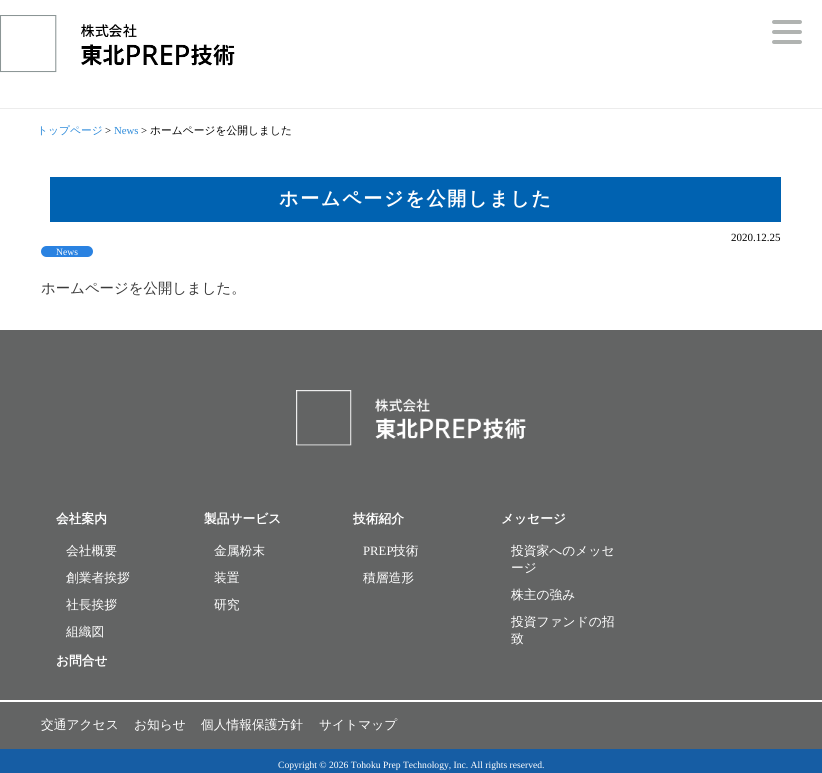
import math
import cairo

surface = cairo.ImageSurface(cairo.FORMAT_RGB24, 822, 773)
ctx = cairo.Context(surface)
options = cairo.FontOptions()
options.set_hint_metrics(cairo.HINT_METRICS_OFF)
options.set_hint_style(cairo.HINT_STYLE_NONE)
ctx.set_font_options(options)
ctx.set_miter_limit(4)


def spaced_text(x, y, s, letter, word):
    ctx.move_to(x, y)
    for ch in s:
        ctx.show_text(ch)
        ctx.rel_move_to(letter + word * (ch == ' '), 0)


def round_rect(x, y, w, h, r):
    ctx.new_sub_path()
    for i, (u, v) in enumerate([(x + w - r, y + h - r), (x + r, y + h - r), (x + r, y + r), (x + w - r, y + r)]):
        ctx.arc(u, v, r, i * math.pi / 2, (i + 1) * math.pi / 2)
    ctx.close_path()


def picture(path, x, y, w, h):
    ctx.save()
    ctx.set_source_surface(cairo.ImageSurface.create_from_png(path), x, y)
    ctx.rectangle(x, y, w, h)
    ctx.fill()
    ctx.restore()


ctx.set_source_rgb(1, 1, 1)
ctx.paint()
ctx.set_source_rgb(0.922, 0.922, 0.922)
ctx.rectangle(0, 108, 822, 1)
ctx.fill()
picture("img1.png", 0, 15, 235, 58)
ctx.set_source_rgb(0.69, 0.702, 0.694)
round_rect(772, 20, 30, 4, 2)
ctx.fill()
round_rect(772, 30, 30, 4, 2)
ctx.fill()
round_rect(772, 40, 30, 4, 2)
ctx.fill()
ctx.select_font_face("WenQuanYi Zen Hei Medium")
ctx.set_font_size(10.75)
ctx.set_source_rgb(0.173, 0.541, 0.855)
ctx.move_to(37, 134)
ctx.show_text("トップページ")
ctx.select_font_face("Liberation Serif")
ctx.set_source_rgb(0, 0, 0)
ctx.move_to(105, 134)
ctx.show_text(">")
ctx.set_source_rgb(0.173, 0.541, 0.855)
ctx.move_to(114, 134)
ctx.show_text("News")
ctx.set_source_rgb(0, 0, 0)
ctx.move_to(141, 134)
ctx.show_text(">")
ctx.select_font_face("WenQuanYi Zen Hei Medium")
ctx.move_to(150, 134)
ctx.show_text("ホームページを公開しました")
ctx.set_source_rgb(0, 0.384, 0.694)
ctx.rectangle(50, 177, 731, 45)
ctx.fill()
ctx.select_font_face("WenQuanYi Zen Hei", cairo.FONT_SLANT_NORMAL, cairo.FONT_WEIGHT_BOLD)
ctx.set_font_size(19)
ctx.set_source_rgb(1, 1, 1)
spaced_text(279, 205, "ホームページを公開しました", 1.75, 0)
ctx.select_font_face("Liberation Serif")
ctx.set_font_size(11)
ctx.set_source_rgb(0, 0, 0)
ctx.move_to(731, 241)
ctx.show_text("2020.12.25")
ctx.set_source_rgb(0.165, 0.51, 0.882)
round_rect(41, 246, 52, 11, 5.5)
ctx.fill()
ctx.set_font_size(9.6)
ctx.set_source_rgb(1, 1, 1)
ctx.move_to(56, 255)
ctx.show_text("News")
ctx.select_font_face("WenQuanYi Zen Hei Medium")
ctx.set_font_size(14.4)
ctx.set_source_rgb(0.227, 0.227, 0.227)
ctx.move_to(41, 293)
ctx.show_text("ホームページを公開しました。")
ctx.set_source_rgb(0.388, 0.392, 0.392)
ctx.rectangle(0, 330, 822, 419)
ctx.fill()
picture("img2.png", 296, 390, 230, 56)
ctx.select_font_face("WenQuanYi Zen Hei", cairo.FONT_SLANT_NORMAL, cairo.FONT_WEIGHT_BOLD)
ctx.set_font_size(12.75)
ctx.set_source_rgb(1, 1, 1)
ctx.move_to(56, 523)
ctx.show_text("会社案内")
ctx.select_font_face("WenQuanYi Zen Hei Medium")
ctx.move_to(66, 555)
ctx.show_text("会社概要")
ctx.move_to(66, 582)
ctx.show_text("創業者挨拶")
ctx.move_to(66, 609)
ctx.show_text("社長挨拶")
ctx.move_to(66, 636)
ctx.show_text("組織図")
ctx.select_font_face("WenQuanYi Zen Hei", cairo.FONT_SLANT_NORMAL, cairo.FONT_WEIGHT_BOLD)
ctx.move_to(204, 523)
ctx.show_text("製品サービス")
ctx.select_font_face("WenQuanYi Zen Hei Medium")
ctx.move_to(214, 555)
ctx.show_text("金属粉末")
ctx.move_to(214, 582)
ctx.show_text("装置")
ctx.move_to(214, 609)
ctx.show_text("研究")
ctx.select_font_face("WenQuanYi Zen Hei", cairo.FONT_SLANT_NORMAL, cairo.FONT_WEIGHT_BOLD)
ctx.move_to(353, 523)
ctx.show_text("技術紹介")
ctx.select_font_face("Liberation Serif")
ctx.move_to(363, 555)
ctx.show_text("PREP")
ctx.select_font_face("WenQuanYi Zen Hei Medium")
ctx.move_to(393, 555)
ctx.show_text("技術")
ctx.move_to(363, 582)
ctx.show_text("積層造形")
ctx.select_font_face("WenQuanYi Zen Hei", cairo.FONT_SLANT_NORMAL, cairo.FONT_WEIGHT_BOLD)
ctx.move_to(501, 523)
ctx.show_text("メッセージ")
ctx.select_font_face("WenQuanYi Zen Hei Medium")
ctx.move_to(511, 555)
ctx.show_text("投資家へのメッセ")
ctx.move_to(511, 572)
ctx.show_text("ージ")
ctx.move_to(511, 599)
ctx.show_text("株主の強み")
ctx.move_to(511, 626)
ctx.show_text("投資ファンドの招")
ctx.move_to(511, 643)
ctx.show_text("致")
ctx.select_font_face("WenQuanYi Zen Hei", cairo.FONT_SLANT_NORMAL, cairo.FONT_WEIGHT_BOLD)
ctx.move_to(56, 665)
ctx.show_text("お問合せ")
ctx.rectangle(0, 700, 822, 2)
ctx.fill()
ctx.select_font_face("WenQuanYi Zen Hei Medium")
ctx.move_to(41, 729)
ctx.show_text("交通アクセス")
ctx.move_to(134, 729)
ctx.show_text("お知らせ")
ctx.move_to(201, 729)
ctx.show_text("個人情報保護方針")
ctx.move_to(319, 729)
ctx.show_text("サイトマップ")
ctx.set_source_rgb(0.086, 0.365, 0.643)
ctx.rectangle(0, 749, 822, 24)
ctx.fill()
ctx.select_font_face("Liberation Serif")
ctx.set_font_size(9.6)
ctx.set_source_rgb(1, 1, 1)
ctx.move_to(278, 768)
ctx.show_text("Copyright © 2026 Tohoku Prep Technology, Inc. All rights reserved.")
surface.write_to_png("page.png")
